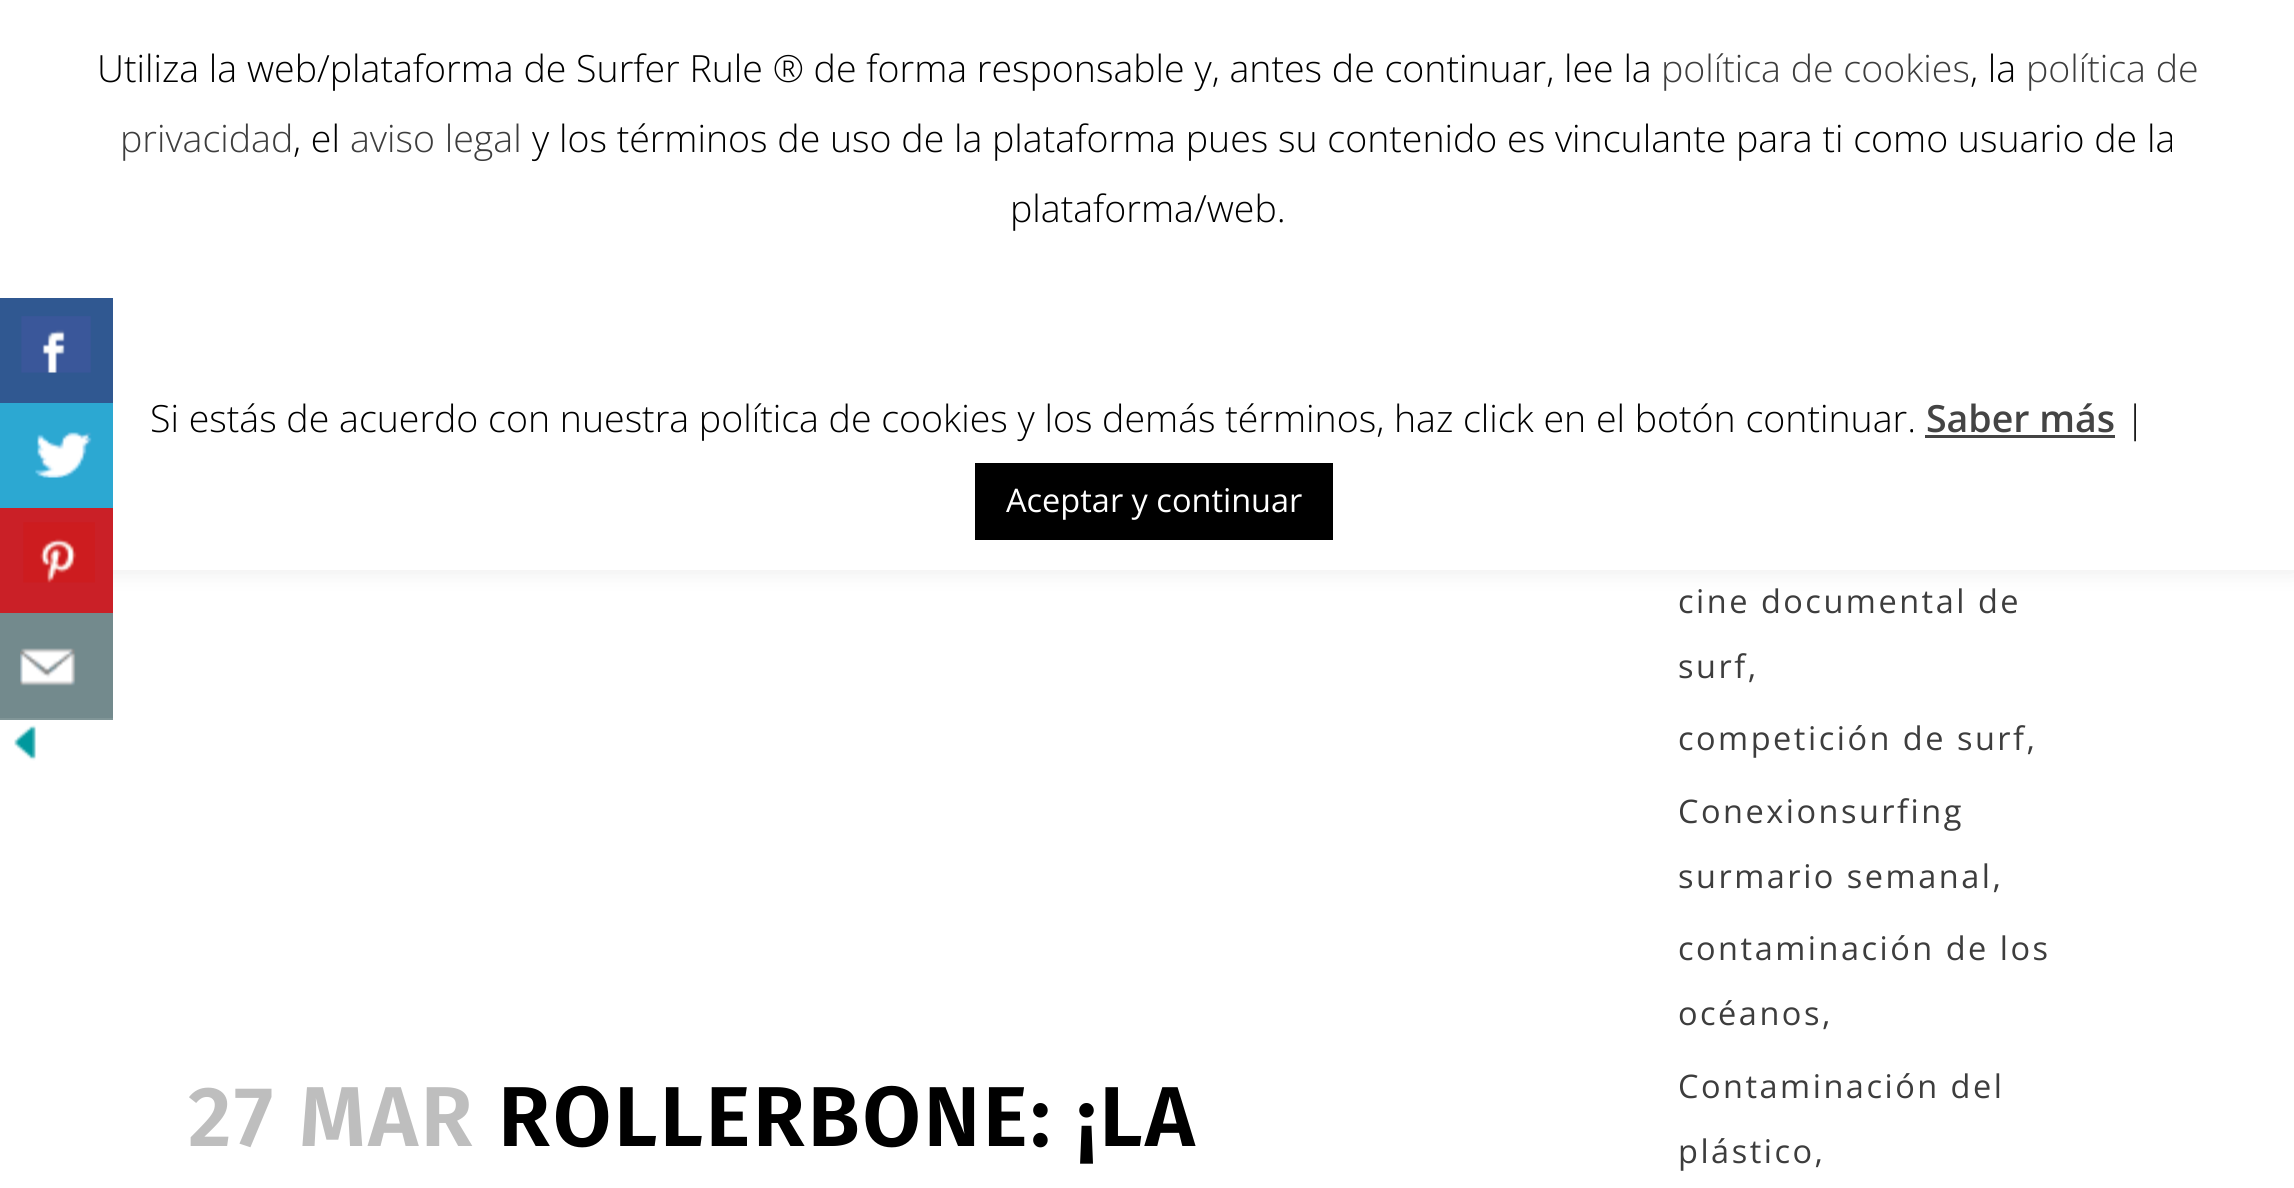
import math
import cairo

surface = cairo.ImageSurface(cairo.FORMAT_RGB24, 2294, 1188)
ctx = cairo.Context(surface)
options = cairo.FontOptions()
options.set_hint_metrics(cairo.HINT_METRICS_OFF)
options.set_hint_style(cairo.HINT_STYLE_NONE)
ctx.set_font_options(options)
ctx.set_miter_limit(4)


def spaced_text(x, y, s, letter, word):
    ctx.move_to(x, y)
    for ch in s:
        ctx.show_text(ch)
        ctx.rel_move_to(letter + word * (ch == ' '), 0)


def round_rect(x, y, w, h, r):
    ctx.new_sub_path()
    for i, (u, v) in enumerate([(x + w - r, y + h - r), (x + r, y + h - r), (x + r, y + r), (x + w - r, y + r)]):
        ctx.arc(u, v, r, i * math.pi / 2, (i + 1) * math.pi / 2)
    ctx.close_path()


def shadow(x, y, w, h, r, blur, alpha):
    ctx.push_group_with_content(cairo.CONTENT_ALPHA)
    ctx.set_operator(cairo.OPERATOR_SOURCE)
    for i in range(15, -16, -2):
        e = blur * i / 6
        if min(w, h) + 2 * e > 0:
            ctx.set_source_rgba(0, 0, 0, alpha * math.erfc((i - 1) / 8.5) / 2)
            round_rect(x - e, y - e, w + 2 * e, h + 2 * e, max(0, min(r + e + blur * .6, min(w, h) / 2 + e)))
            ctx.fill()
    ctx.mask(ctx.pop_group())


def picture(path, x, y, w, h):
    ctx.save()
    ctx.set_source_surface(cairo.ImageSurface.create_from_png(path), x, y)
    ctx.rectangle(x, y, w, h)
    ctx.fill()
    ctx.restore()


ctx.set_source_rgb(1, 1, 1)
ctx.paint()
ctx.set_source_rgb(0.675, 0.671, 0.671)
shadow(0, -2, 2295, 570, 0, 12.5, 0.3)
ctx.set_source_rgb(1, 1, 1)
ctx.rectangle(0, 0, 2294, 570)
ctx.fill()
ctx.set_source_rgb(0.188, 0.345, 0.569)
ctx.rectangle(0, 298, 113, 105)
ctx.fill()
picture("img1.png", 21, 316, 70, 57)
ctx.set_source_rgb(0.173, 0.659, 0.824)
ctx.rectangle(0, 403, 113, 105)
ctx.fill()
picture("img2.png", 35, 432, 57, 46)
ctx.set_source_rgb(0.792, 0.125, 0.153)
ctx.rectangle(0, 508, 113, 105)
ctx.fill()
picture("img3.png", 23, 522, 72, 61)
ctx.set_source_rgb(0.451, 0.541, 0.553)
ctx.rectangle(0, 613, 113, 105)
ctx.fill()
ctx.set_source_rgb(0.506, 0.588, 0.596)
ctx.rectangle(0, 718, 113, 2)
ctx.fill()
picture("img4.png", 20, 648, 56, 38)
picture("img5.png", 14, 725, 22, 36)
ctx.select_font_face("Open Sans Light")
ctx.set_font_size(37.5)
ctx.set_source_rgb(0, 0, 0)
ctx.move_to(97, 82)
ctx.show_text("Utiliza la web/plataforma de Surfer Rule ® de forma responsable y, antes de continuar, lee la")
ctx.set_source_rgb(0.239, 0.239, 0.239)
ctx.move_to(1661, 82)
ctx.show_text("política de cookies")
ctx.set_source_rgb(0, 0, 0)
ctx.move_to(1970, 82)
ctx.show_text(", la")
ctx.set_source_rgb(0.239, 0.239, 0.239)
ctx.move_to(2026, 82)
ctx.show_text("política de")
ctx.move_to(120, 152)
ctx.show_text("privacidad")
ctx.set_source_rgb(0, 0, 0)
ctx.move_to(293, 152)
ctx.show_text(", el")
ctx.set_source_rgb(0.239, 0.239, 0.239)
ctx.move_to(350, 152)
ctx.show_text("aviso legal")
ctx.set_source_rgb(0, 0, 0)
ctx.move_to(532, 152)
ctx.show_text("y los términos de uso de la plataforma pues su contenido es vinculante para ti como usuario de la")
ctx.move_to(1010, 222)
ctx.show_text("plataforma/web.")
ctx.move_to(150, 432)
ctx.show_text("Si estás de acuerdo con nuestra política de cookies y los demás términos, haz click en el botón continuar.")
ctx.select_font_face("Open Sans SemiBold")
ctx.set_source_rgb(0.267, 0.267, 0.267)
ctx.move_to(1926, 432)
ctx.show_text("Saber más")
ctx.rectangle(1925, 435, 190, 3)
ctx.fill()
ctx.select_font_face("Open Sans Light")
ctx.set_source_rgb(0, 0, 0)
ctx.move_to(2125, 432)
ctx.show_text("|")
ctx.rectangle(975, 463, 358, 77)
ctx.fill()
ctx.select_font_face("Open Sans")
ctx.set_font_size(32.5)
ctx.set_source_rgb(1, 1, 1)
ctx.move_to(1006, 512)
ctx.show_text("Aceptar y continuar")
ctx.select_font_face("Fira Sans SemiBold")
ctx.set_font_size(85)
ctx.set_source_rgb(0.745, 0.745, 0.745)
spaced_text(188, 1146, "27 MAR", 2.5, 0)
ctx.set_source_rgb(0, 0, 0)
spaced_text(498, 1146, "ROLLERBONE: ¡LA", 2.5, 0)
ctx.select_font_face("Open Sans")
ctx.set_font_size(32.5)
ctx.set_source_rgb(0.239, 0.239, 0.239)
spaced_text(1678, 613, "cine documental de", 2.5, 0)
spaced_text(1678, 678, "surf,", 2.5, 0)
spaced_text(1678, 750, "competición de surf,", 2.5, 0)
spaced_text(1678, 823, "Conexionsurfing", 2.5, 0)
spaced_text(1678, 888, "surmario semanal,", 2.5, 0)
spaced_text(1678, 960, "contaminación de los", 2.5, 0)
spaced_text(1678, 1025, "océanos,", 2.5, 0)
spaced_text(1678, 1098, "Contaminación del", 2.5, 0)
spaced_text(1678, 1163, "plástico,", 2.5, 0)
surface.write_to_png("page.png")
